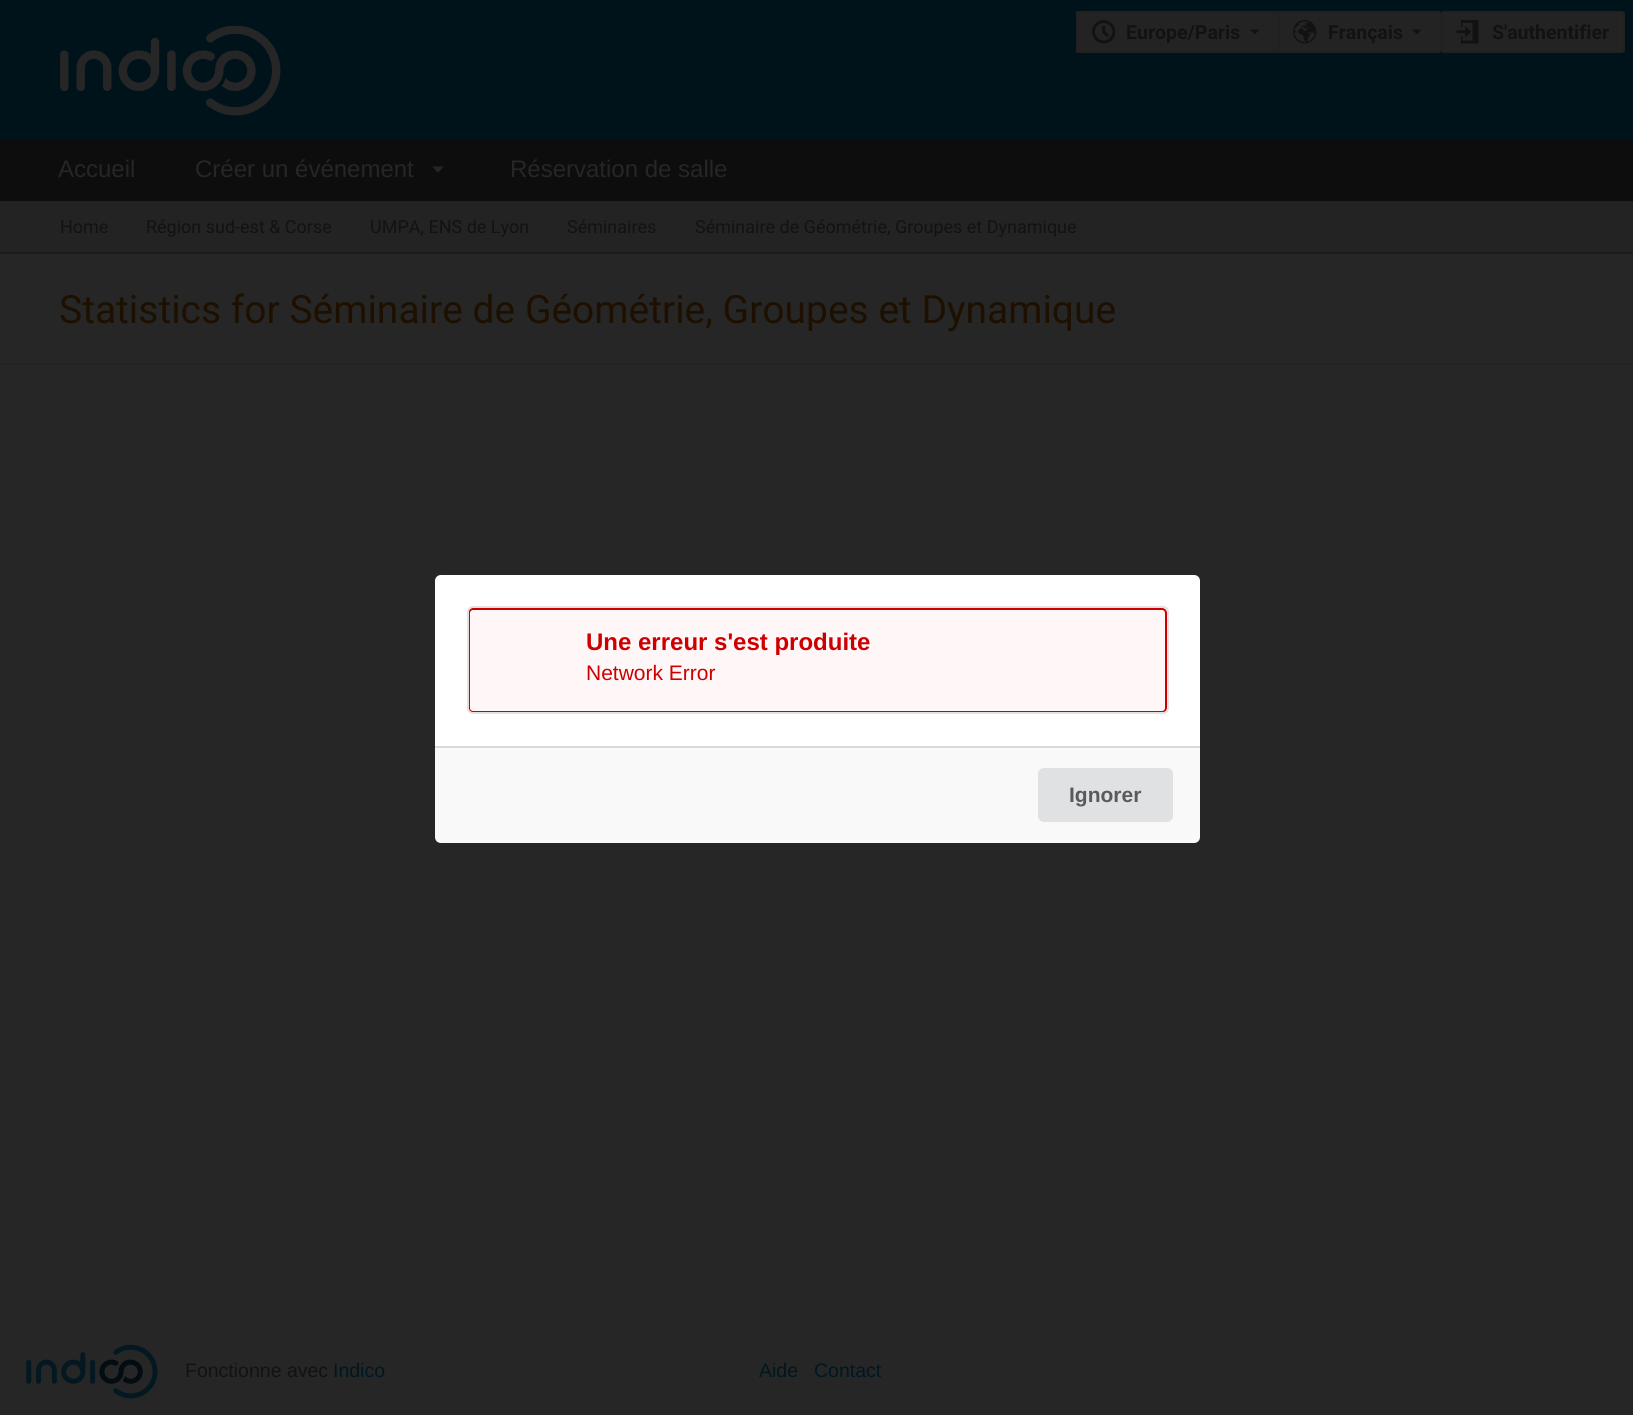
import math
import cairo

surface = cairo.ImageSurface(cairo.FORMAT_RGB24, 1633, 1415)
ctx = cairo.Context(surface)
options = cairo.FontOptions()
options.set_hint_metrics(cairo.HINT_METRICS_OFF)
options.set_hint_style(cairo.HINT_STYLE_NONE)
ctx.set_font_options(options)
ctx.set_miter_limit(4)


def round_rect(x, y, w, h, r):
    ctx.new_sub_path()
    for i, (u, v) in enumerate([(x + w - r, y + h - r), (x + r, y + h - r), (x + r, y + r), (x + w - r, y + r)]):
        ctx.arc(u, v, r, i * math.pi / 2, (i + 1) * math.pi / 2)
    ctx.close_path()


def picture(path, x, y, w, h):
    ctx.save()
    ctx.set_source_surface(cairo.ImageSurface.create_from_png(path), x, y)
    ctx.rectangle(x, y, w, h)
    ctx.fill()
    ctx.restore()


ctx.set_source_rgb(0.149, 0.149, 0.149)
ctx.paint()
ctx.set_source_rgb(0, 0.075, 0.102)
ctx.rectangle(0, 0, 1633, 140)
ctx.fill()
picture("img1.png", 60, 26, 221, 90)
ctx.set_source_rgb(0.137, 0.137, 0.137)
ctx.rectangle(1078, 13, 200, 38)
ctx.fill()
ctx.set_source_rgb(0.129, 0.129, 0.129)
ctx.rectangle(1076, 11, 202, 2)
ctx.fill()
ctx.rectangle(1076, 51, 202, 2)
ctx.fill()
ctx.rectangle(1076, 11, 2, 42)
ctx.fill()
picture("img2.png", 1092, 20, 24, 24)
ctx.select_font_face("Roboto", cairo.FONT_SLANT_NORMAL, cairo.FONT_WEIGHT_BOLD)
ctx.set_font_size(19.5)
ctx.set_source_rgb(0.071, 0.071, 0.071)
ctx.move_to(1126, 39)
ctx.show_text("Europe/Paris")
ctx.new_path()
ctx.move_to(1250, 29.5)
ctx.line_to(1255, 34.5)
ctx.line_to(1259.5, 29.5)
ctx.close_path()
ctx.fill()
ctx.set_source_rgb(0.137, 0.137, 0.137)
ctx.new_path()
ctx.move_to(1279, 12)
ctx.line_to(1439, 12)
ctx.curve_to(1440, 12, 1441, 13, 1441, 14)
ctx.line_to(1441, 50)
ctx.curve_to(1441, 51, 1440, 52, 1439, 52)
ctx.line_to(1279, 52)
ctx.close_path()
ctx.fill_preserve()
ctx.set_source_rgb(0.129, 0.129, 0.129)
ctx.stroke()
picture("img3.png", 1293, 20, 24, 24)
ctx.set_source_rgb(0.071, 0.071, 0.071)
ctx.move_to(1328, 39)
ctx.show_text("Français")
ctx.new_path()
ctx.move_to(1412, 29.5)
ctx.line_to(1417, 34.5)
ctx.line_to(1421.5, 29.5)
ctx.close_path()
ctx.fill()
ctx.set_source_rgb(0.137, 0.137, 0.137)
ctx.new_path()
ctx.move_to(1443, 12)
ctx.line_to(1622, 12)
ctx.curve_to(1623, 12, 1624, 13, 1624, 14)
ctx.line_to(1624, 50)
ctx.curve_to(1624, 51, 1623, 52, 1622, 52)
ctx.line_to(1443, 52)
ctx.close_path()
ctx.fill_preserve()
ctx.set_source_rgb(0.129, 0.129, 0.129)
ctx.stroke()
picture("img4.png", 1456, 20, 23, 24)
ctx.set_source_rgb(0.071, 0.071, 0.071)
ctx.move_to(1492, 39)
ctx.show_text("S'authentifier")
ctx.set_source_rgb(0.051, 0.051, 0.051)
ctx.rectangle(0, 140, 1633, 61)
ctx.fill()
ctx.select_font_face("Liberation Sans")
ctx.set_font_size(24)
ctx.set_source_rgb(0.149, 0.149, 0.149)
ctx.move_to(58, 177)
ctx.show_text("Accueil")
ctx.move_to(195, 177)
ctx.show_text("Créer un événement")
ctx.new_path()
ctx.move_to(432, 166.5)
ctx.line_to(438, 172.5)
ctx.line_to(444, 166.5)
ctx.close_path()
ctx.fill()
ctx.move_to(510, 177)
ctx.show_text("Réservation de salle")
ctx.set_source_rgb(0.137, 0.137, 0.137)
ctx.rectangle(0, 201, 1633, 51)
ctx.fill()
ctx.set_source_rgb(0.11, 0.11, 0.11)
ctx.rectangle(0, 252, 1633, 2)
ctx.fill()
ctx.select_font_face("Roboto")
ctx.set_font_size(18)
ctx.set_source_rgb(0.071, 0.071, 0.071)
ctx.move_to(60, 233)
ctx.show_text("Home")
ctx.move_to(146, 233)
ctx.show_text("Région sud-est & Corse")
ctx.move_to(370, 233)
ctx.show_text("UMPA, ENS de Lyon")
ctx.move_to(567, 233)
ctx.show_text("Séminaires")
ctx.move_to(695, 233)
ctx.show_text("Séminaire de Géométrie, Groupes et Dynamique")
ctx.set_source_rgb(0.137, 0.137, 0.137)
ctx.rectangle(0, 363, 1633, 2)
ctx.fill()
ctx.set_font_size(39)
ctx.set_source_rgb(0.118, 0.063, 0.004)
ctx.move_to(59, 323)
ctx.show_text("Statistics for Séminaire de Géométrie, Groupes et Dynamique")
ctx.set_source_rgb(1, 1, 1)
ctx.new_path()
ctx.move_to(441, 575)
ctx.line_to(1194, 575)
ctx.curve_to(1197.5, 575, 1200, 577.5, 1200, 581)
ctx.line_to(1200, 746)
ctx.line_to(435, 746)
ctx.line_to(435, 581)
ctx.curve_to(435, 577.5, 437.5, 575, 441, 575)
ctx.close_path()
ctx.fill()
ctx.set_source_rgb(1, 0.965, 0.965)
round_rect(467, 606, 702, 108, 6)
ctx.fill()
round_rect(469, 609, 697, 103, 4)
ctx.set_source_rgb(0.8, 0, 0)
ctx.stroke()
round_rect(468, 607, 700, 106, 5)
ctx.set_source_rgb(0.906, 0.878, 0.867)
ctx.stroke()
ctx.select_font_face("Liberation Sans", cairo.FONT_SLANT_NORMAL, cairo.FONT_WEIGHT_BOLD)
ctx.set_font_size(24)
ctx.set_source_rgb(0.8, 0, 0)
ctx.move_to(586, 650)
ctx.show_text("Une erreur s'est produite")
ctx.select_font_face("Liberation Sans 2")
ctx.set_font_size(21)
ctx.move_to(586, 680)
ctx.show_text("Network Error")
ctx.set_source_rgb(0.976, 0.976, 0.976)
ctx.new_path()
ctx.move_to(435, 746)
ctx.line_to(1200, 746)
ctx.line_to(1200, 837)
ctx.curve_to(1200, 840.5, 1197.5, 843, 1194, 843)
ctx.line_to(441, 843)
ctx.curve_to(437.5, 843, 435, 840.5, 435, 837)
ctx.close_path()
ctx.fill()
ctx.set_source_rgb(0.851, 0.851, 0.851)
ctx.rectangle(435, 746, 765, 2)
ctx.fill()
ctx.set_source_rgb(0.878, 0.882, 0.886)
round_rect(1038, 768, 135, 54, 6)
ctx.fill()
ctx.select_font_face("Liberation Sans", cairo.FONT_SLANT_NORMAL, cairo.FONT_WEIGHT_BOLD)
ctx.set_source_rgb(0.353, 0.353, 0.353)
ctx.move_to(1069, 802)
ctx.show_text("Ignorer")
picture("img5.png", 26, 1344, 132, 55)
ctx.select_font_face("Liberation Sans")
ctx.set_font_size(19.5)
ctx.set_source_rgb(0.071, 0.071, 0.071)
ctx.move_to(185, 1377)
ctx.show_text("Fonctionne avec")
ctx.set_source_rgb(0, 0.09, 0.122)
ctx.move_to(333, 1377)
ctx.show_text("Indico")
ctx.move_to(759, 1377)
ctx.show_text("Aide")
ctx.move_to(814, 1377)
ctx.show_text("Contact")
surface.write_to_png("page.png")
